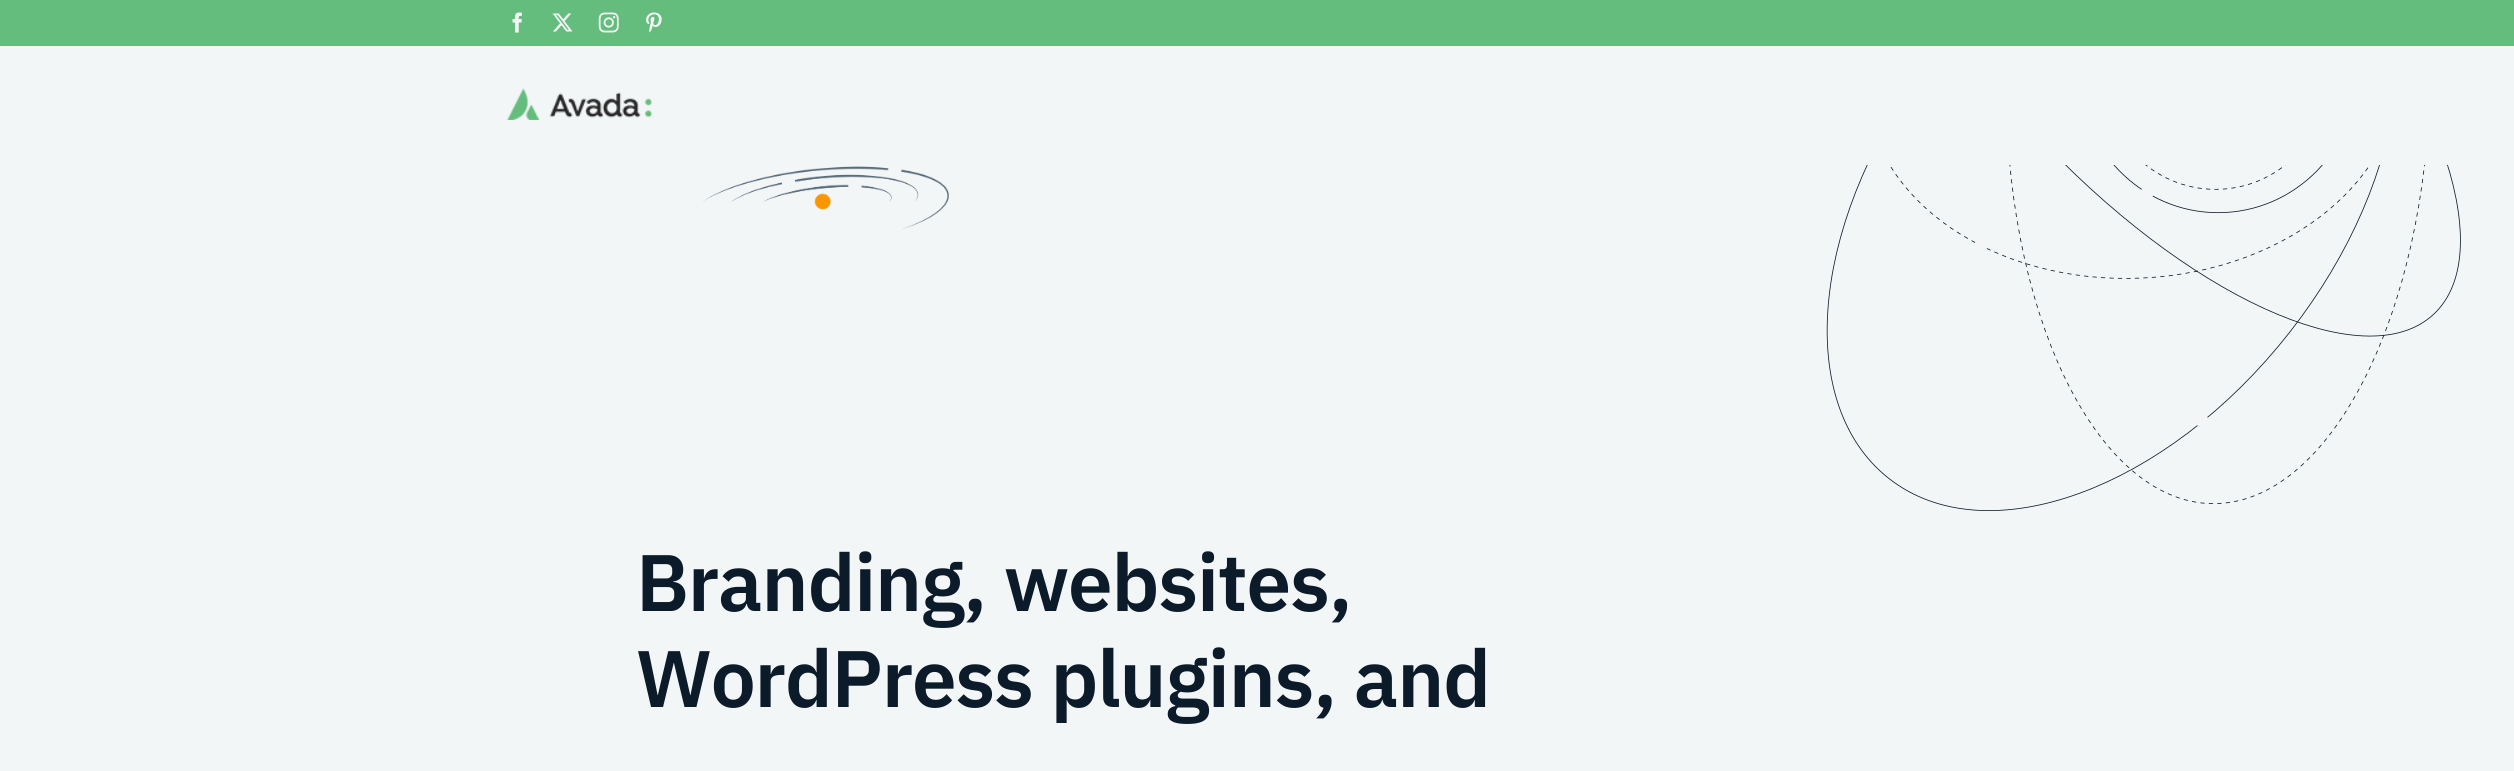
import math
import cairo

surface = cairo.ImageSurface(cairo.FORMAT_RGB24, 2514, 771)
ctx = cairo.Context(surface)
options = cairo.FontOptions()
options.set_hint_metrics(cairo.HINT_METRICS_OFF)
options.set_hint_style(cairo.HINT_STYLE_NONE)
ctx.set_font_options(options)
ctx.set_miter_limit(4)


def spaced_text(x, y, s, letter, word):
    ctx.move_to(x, y)
    for ch in s:
        ctx.show_text(ch)
        ctx.rel_move_to(letter + word * (ch == ' '), 0)


def picture(path, x, y, w, h):
    ctx.save()
    ctx.set_source_surface(cairo.ImageSurface.create_from_png(path), x, y)
    ctx.rectangle(x, y, w, h)
    ctx.fill()
    ctx.restore()


ctx.set_source_rgb(0.953, 0.961, 0.965)
ctx.paint()
ctx.set_source_rgb(0.396, 0.741, 0.49)
ctx.rectangle(0, 0, 2514, 46)
ctx.fill()
picture("img1.png", 512, 12, 10, 21)
picture("img2.png", 552, 13, 21, 19)
picture("img3.png", 598, 12, 21, 21)
picture("img4.png", 646, 12, 16, 21)
picture("img5.png", 507, 88, 145, 32)
picture("img6.png", 703, 166, 246, 64)
picture("img7.png", 1826, 165, 635, 346)
ctx.select_font_face("IBM Plex Sans SemiBold")
ctx.set_font_size(80)
ctx.set_source_rgb(0.047, 0.106, 0.165)
spaced_text(636, 611, "Branding, websites,", -1.2, 0)
spaced_text(636, 707, "WordPress plugins, and", -1.2, 0)
surface.write_to_png("page.png")
